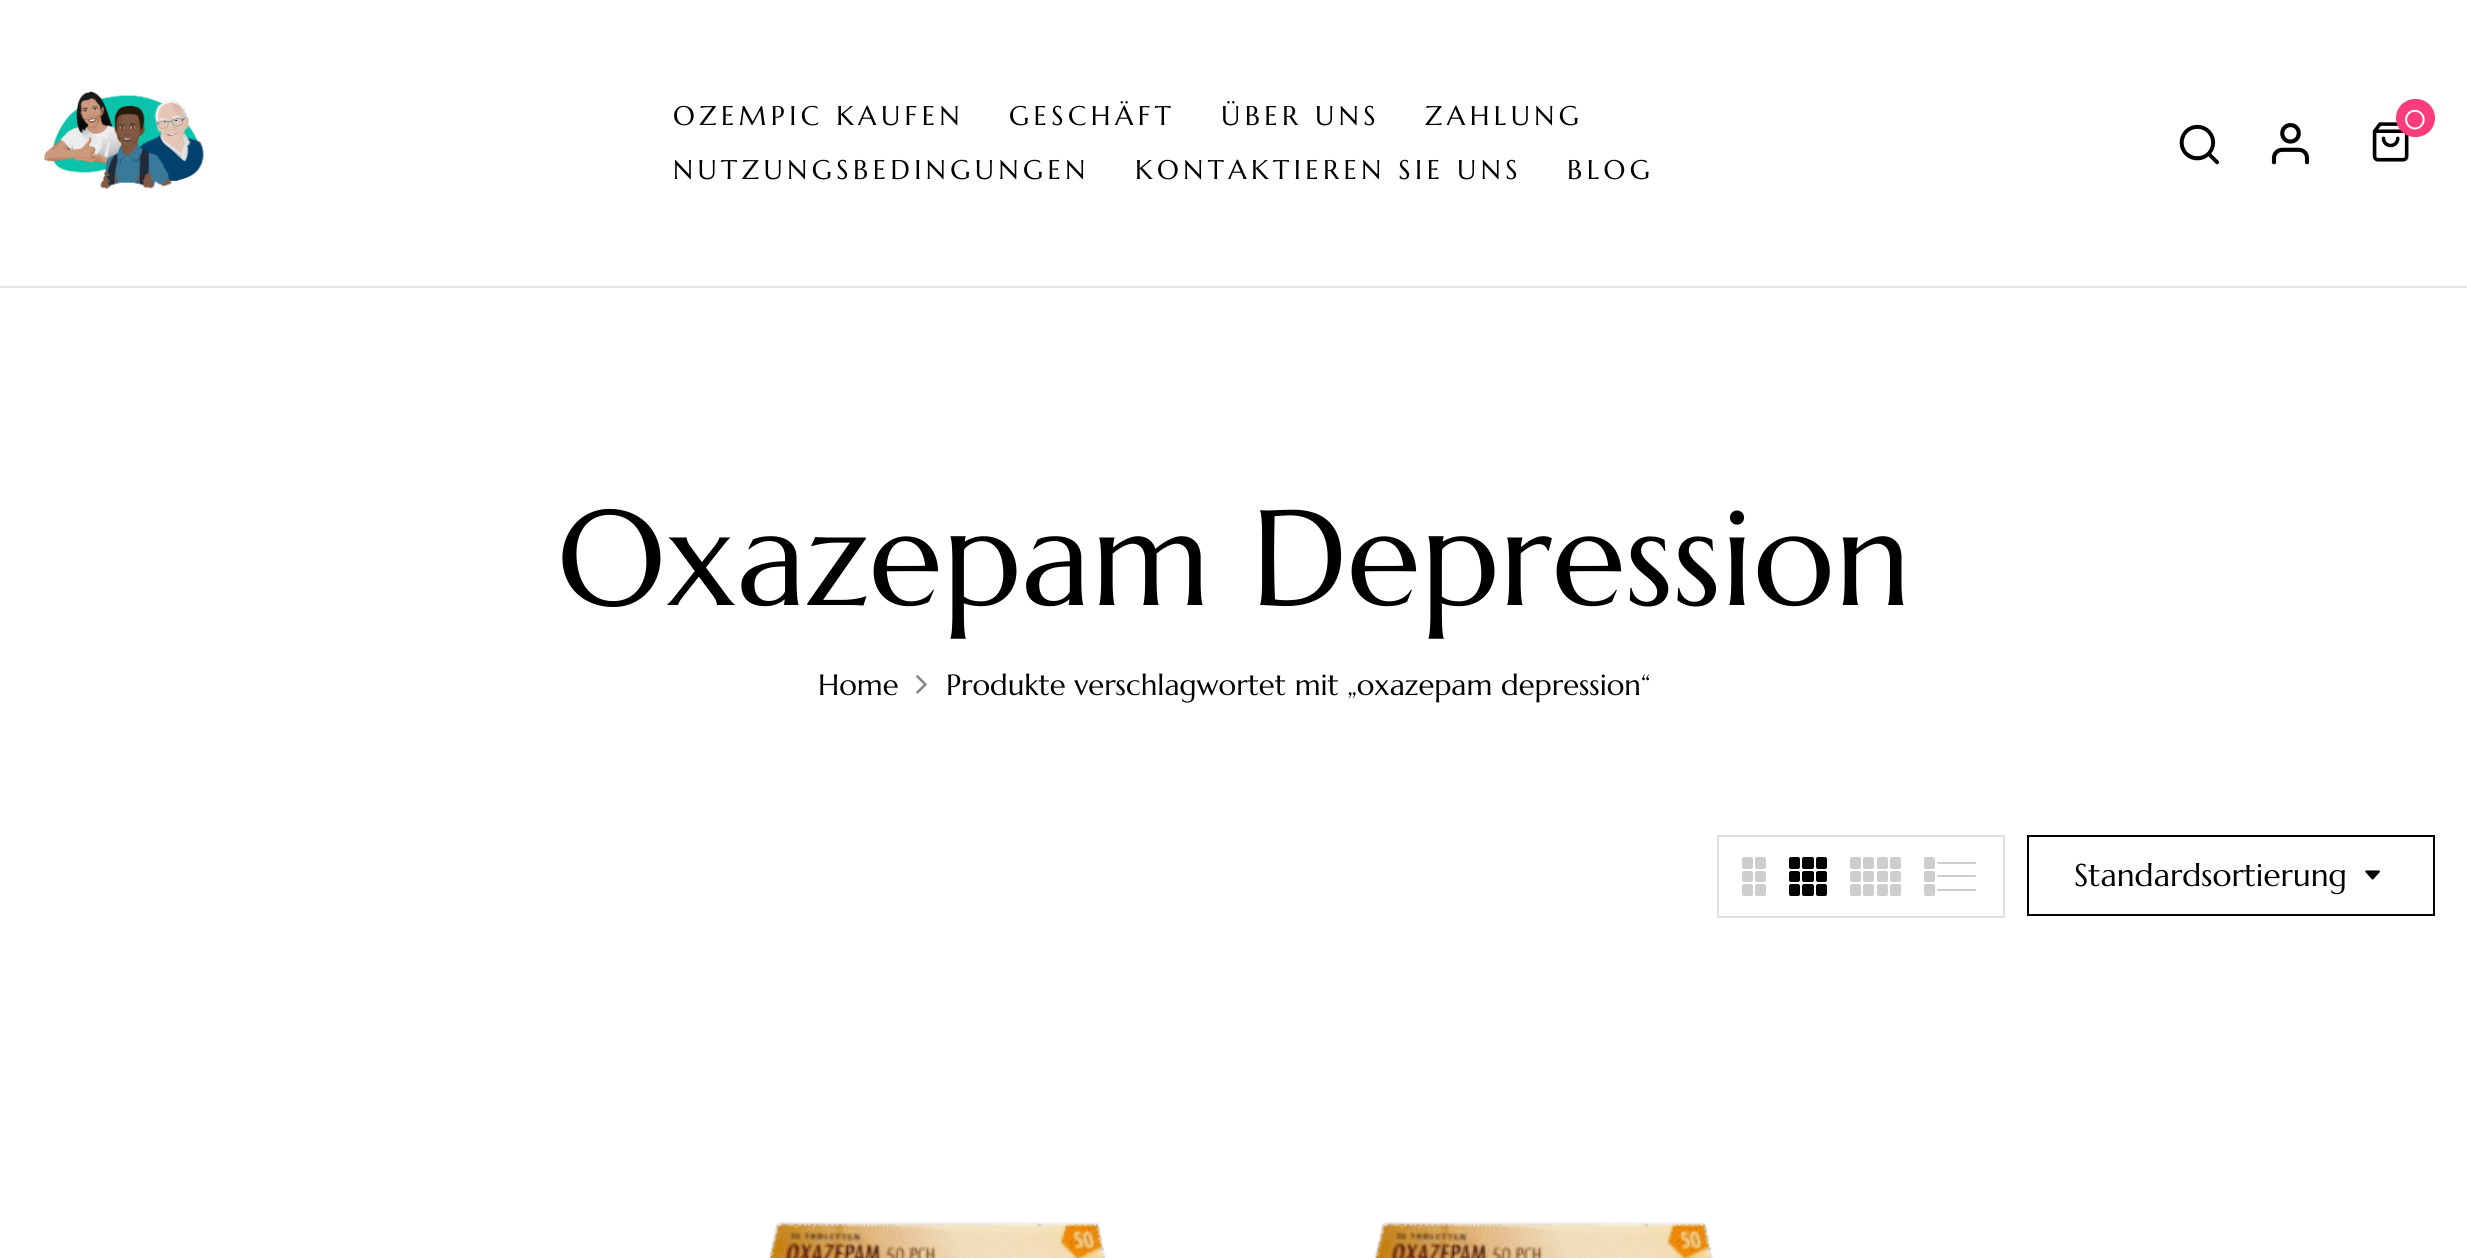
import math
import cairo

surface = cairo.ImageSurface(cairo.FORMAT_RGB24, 2467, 1258)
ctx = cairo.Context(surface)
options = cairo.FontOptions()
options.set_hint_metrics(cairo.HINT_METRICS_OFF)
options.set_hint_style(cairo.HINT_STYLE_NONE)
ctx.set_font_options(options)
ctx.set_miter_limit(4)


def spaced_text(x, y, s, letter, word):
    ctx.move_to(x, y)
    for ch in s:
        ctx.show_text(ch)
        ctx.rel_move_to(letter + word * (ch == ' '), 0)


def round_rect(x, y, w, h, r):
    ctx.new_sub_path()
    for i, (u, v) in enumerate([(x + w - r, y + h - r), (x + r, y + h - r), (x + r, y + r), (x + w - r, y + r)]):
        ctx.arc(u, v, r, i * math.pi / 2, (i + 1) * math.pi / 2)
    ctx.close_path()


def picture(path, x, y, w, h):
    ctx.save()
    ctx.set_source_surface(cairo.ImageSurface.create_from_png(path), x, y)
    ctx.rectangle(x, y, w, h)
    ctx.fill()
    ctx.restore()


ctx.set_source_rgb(1, 1, 1)
ctx.paint()
ctx.set_source_rgb(0.898, 0.898, 0.898)
ctx.rectangle(0, 286, 2467, 2)
ctx.fill()
picture("img1.png", 44, 91, 160, 99)
ctx.select_font_face("Marcellus")
ctx.set_font_size(27)
ctx.set_source_rgb(0, 0, 0)
spaced_text(673, 125, "OZEMPIC KAUFEN", 4.5, 0)
spaced_text(1009, 125, "GESCHÄFT", 4.5, 0)
spaced_text(1221, 125, "ÜBER UNS", 4.5, 0)
spaced_text(1425, 125, "ZAHLUNG", 4.5, 0)
spaced_text(673, 179, "NUTZUNGSBEDINGUNGEN", 4.5, 0)
spaced_text(1135, 179, "KONTAKTIEREN SIE UNS", 4.5, 0)
spaced_text(1567, 179, "BLOG", 4.5, 0)
picture("img2.png", 2372, 122, 37, 40)
ctx.set_source_rgb(0.98, 0.235, 0.478)
round_rect(2396, 99, 39, 38, 19)
ctx.fill()
ctx.set_source_rgb(1, 1, 1)
ctx.move_to(2404, 129)
ctx.show_text("0")
picture("img3.png", 2179, 124, 41, 41)
picture("img4.png", 2271, 123, 39, 42)
ctx.set_font_size(135)
ctx.set_source_rgb(0, 0, 0)
ctx.move_to(557, 605)
ctx.show_text("Oxazepam Depression")
ctx.set_font_size(29.25)
ctx.move_to(818, 695)
ctx.show_text("Home")
picture("img5.png", 916, 675, 11, 19)
ctx.move_to(946, 695)
ctx.show_text("Produkte verschlagwortet mit „oxazepam depression“")
ctx.rectangle(1718, 836, 286, 81)
ctx.set_source_rgb(0.882, 0.882, 0.882)
ctx.stroke()
ctx.set_source_rgb(0.808, 0.808, 0.808)
round_rect(1742, 857, 11, 12, 2)
ctx.fill()
round_rect(1755, 857, 11, 12, 2)
ctx.fill()
round_rect(1742, 871, 11, 11, 2)
ctx.fill()
round_rect(1755, 871, 11, 11, 2)
ctx.fill()
round_rect(1742, 884, 11, 12, 2)
ctx.fill()
round_rect(1755, 884, 11, 12, 2)
ctx.fill()
ctx.set_source_rgb(0, 0, 0)
round_rect(1789, 857, 11, 12, 2)
ctx.fill()
round_rect(1802, 857, 12, 12, 2)
ctx.fill()
round_rect(1816, 857, 11, 12, 2)
ctx.fill()
round_rect(1789, 871, 11, 11, 2)
ctx.fill()
round_rect(1802, 871, 12, 11, 2)
ctx.fill()
round_rect(1816, 871, 11, 11, 2)
ctx.fill()
round_rect(1789, 884, 11, 12, 2)
ctx.fill()
round_rect(1802, 884, 12, 12, 2)
ctx.fill()
round_rect(1816, 884, 11, 12, 2)
ctx.fill()
ctx.set_source_rgb(0.808, 0.808, 0.808)
round_rect(1850, 857, 11, 12, 2)
ctx.fill()
round_rect(1863, 857, 11, 12, 2)
ctx.fill()
round_rect(1877, 857, 11, 12, 2)
ctx.fill()
round_rect(1890, 857, 11, 12, 2)
ctx.fill()
round_rect(1850, 871, 11, 11, 2)
ctx.fill()
round_rect(1863, 871, 11, 11, 2)
ctx.fill()
round_rect(1877, 871, 11, 11, 2)
ctx.fill()
round_rect(1890, 871, 11, 11, 2)
ctx.fill()
round_rect(1850, 884, 11, 12, 2)
ctx.fill()
round_rect(1863, 884, 11, 12, 2)
ctx.fill()
round_rect(1877, 884, 11, 12, 2)
ctx.fill()
round_rect(1890, 884, 11, 12, 2)
ctx.fill()
round_rect(1924, 857, 11, 12, 2)
ctx.fill()
round_rect(1937, 862, 39, 2, 1)
ctx.fill()
round_rect(1924, 871, 11, 11, 2)
ctx.fill()
round_rect(1937, 875, 39, 2, 1)
ctx.fill()
round_rect(1924, 884, 11, 12, 2)
ctx.fill()
round_rect(1937, 889, 39, 2, 1)
ctx.fill()
ctx.rectangle(2028, 836, 406, 79)
ctx.set_source_rgb(0, 0, 0)
ctx.stroke()
ctx.set_font_size(31.5)
ctx.move_to(2074, 886)
ctx.show_text("Standardsortierung")
picture("img6.png", 2365, 870, 15, 10)
picture("img7.png", 768, 1221, 338, 37)
picture("img8.png", 1374, 1221, 339, 37)
surface.write_to_png("page.png")
